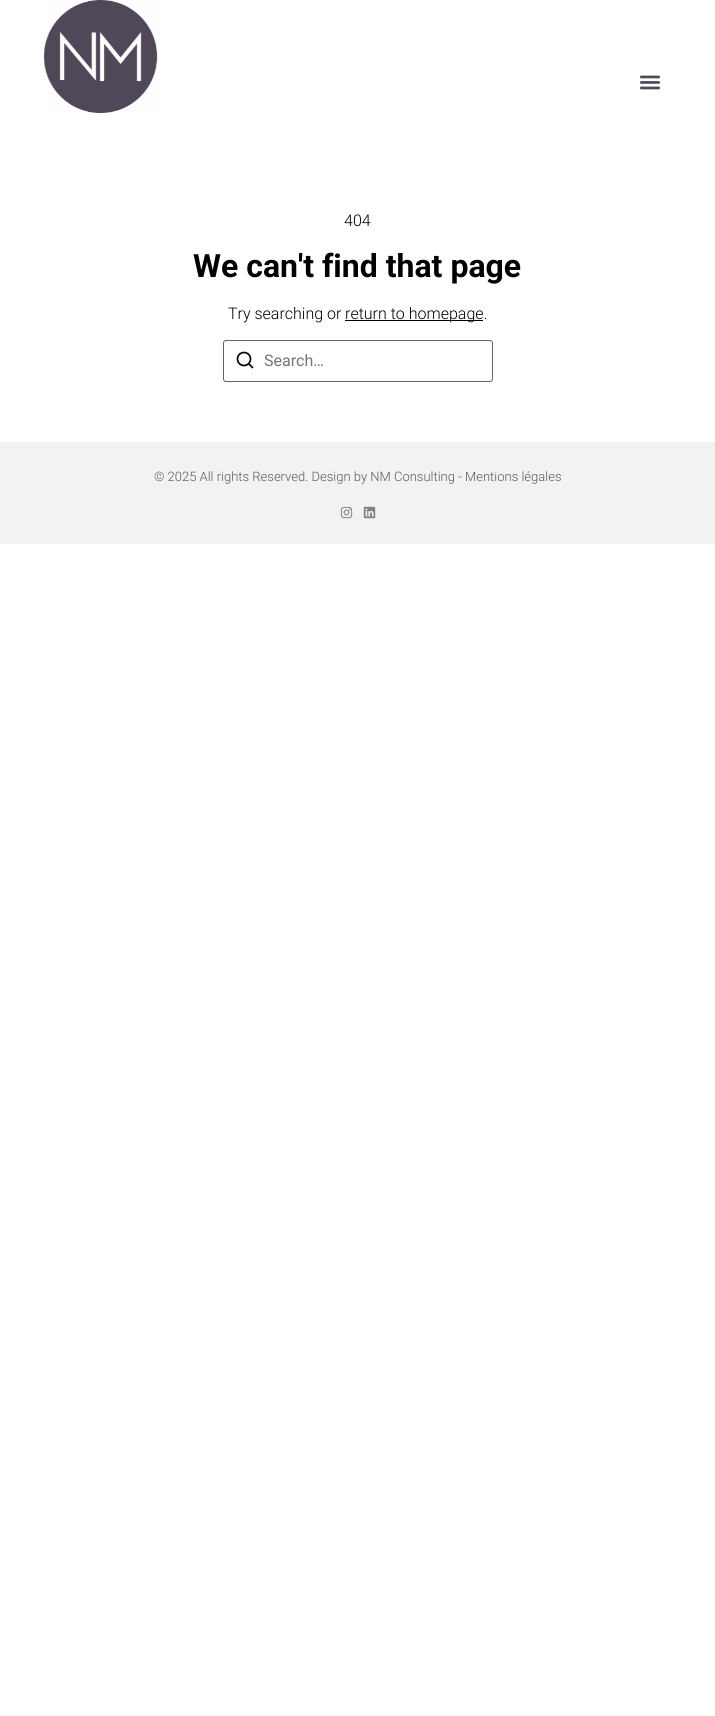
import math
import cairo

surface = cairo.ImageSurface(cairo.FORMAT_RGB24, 715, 1716)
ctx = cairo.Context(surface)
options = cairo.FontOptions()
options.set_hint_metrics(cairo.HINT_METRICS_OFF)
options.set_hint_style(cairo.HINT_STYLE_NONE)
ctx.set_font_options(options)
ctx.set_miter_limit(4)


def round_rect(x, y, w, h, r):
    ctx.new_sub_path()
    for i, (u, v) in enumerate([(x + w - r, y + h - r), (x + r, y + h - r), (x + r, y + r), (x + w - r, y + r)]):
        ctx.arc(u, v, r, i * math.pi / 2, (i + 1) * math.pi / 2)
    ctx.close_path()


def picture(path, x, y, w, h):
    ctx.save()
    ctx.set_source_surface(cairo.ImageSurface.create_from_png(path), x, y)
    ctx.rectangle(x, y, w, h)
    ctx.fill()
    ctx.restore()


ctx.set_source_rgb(1, 1, 1)
ctx.paint()
picture("img1.png", 44, 0, 114, 113)
picture("img2.png", 639, 75, 22, 15)
ctx.select_font_face("Roboto Light")
ctx.set_font_size(16)
ctx.set_source_rgb(0, 0, 0)
ctx.move_to(344, 226)
ctx.show_text("404")
ctx.select_font_face("Roboto", cairo.FONT_SLANT_NORMAL, cairo.FONT_WEIGHT_BOLD)
ctx.set_font_size(32)
ctx.move_to(193, 277)
ctx.show_text("We can't find that page")
ctx.select_font_face("Roboto Light")
ctx.set_font_size(16)
ctx.move_to(228, 319)
ctx.show_text("Try searching or")
ctx.rectangle(345, 320, 138, 1)
ctx.fill()
ctx.move_to(345, 319)
ctx.show_text("return to homepage.")
round_rect(223.5, 340.5, 269, 41, 2.5)
ctx.set_source_rgb(0.4, 0.4, 0.4)
ctx.set_line_width(1)
ctx.stroke()
ctx.arc(244, 359, 6.5, 0, 2 * math.pi)
ctx.set_source_rgb(0, 0, 0)
ctx.set_line_width(1.7)
ctx.stroke()
ctx.new_path()
ctx.move_to(252.5, 367.5)
ctx.line_to(249, 364)
ctx.set_line_cap(cairo.LINE_CAP_ROUND)
ctx.set_line_join(cairo.LINE_JOIN_ROUND)
ctx.stroke()
ctx.select_font_face("Roboto")
ctx.set_source_rgb(0.459, 0.459, 0.459)
ctx.move_to(264, 366)
ctx.show_text("Search…")
ctx.set_source_rgb(0.949, 0.949, 0.949)
ctx.rectangle(0, 442, 715, 102)
ctx.fill()
ctx.select_font_face("Roboto Light")
ctx.set_font_size(13)
ctx.set_source_rgb(0.329, 0.349, 0.373)
ctx.move_to(154, 481)
ctx.show_text("© 2025 All rights Reserved. Design by NM Consulting - Mentions légales")
picture("img3.png", 340, 506, 13, 13)
picture("img4.png", 363, 506, 13, 13)
surface.write_to_png("page.png")
